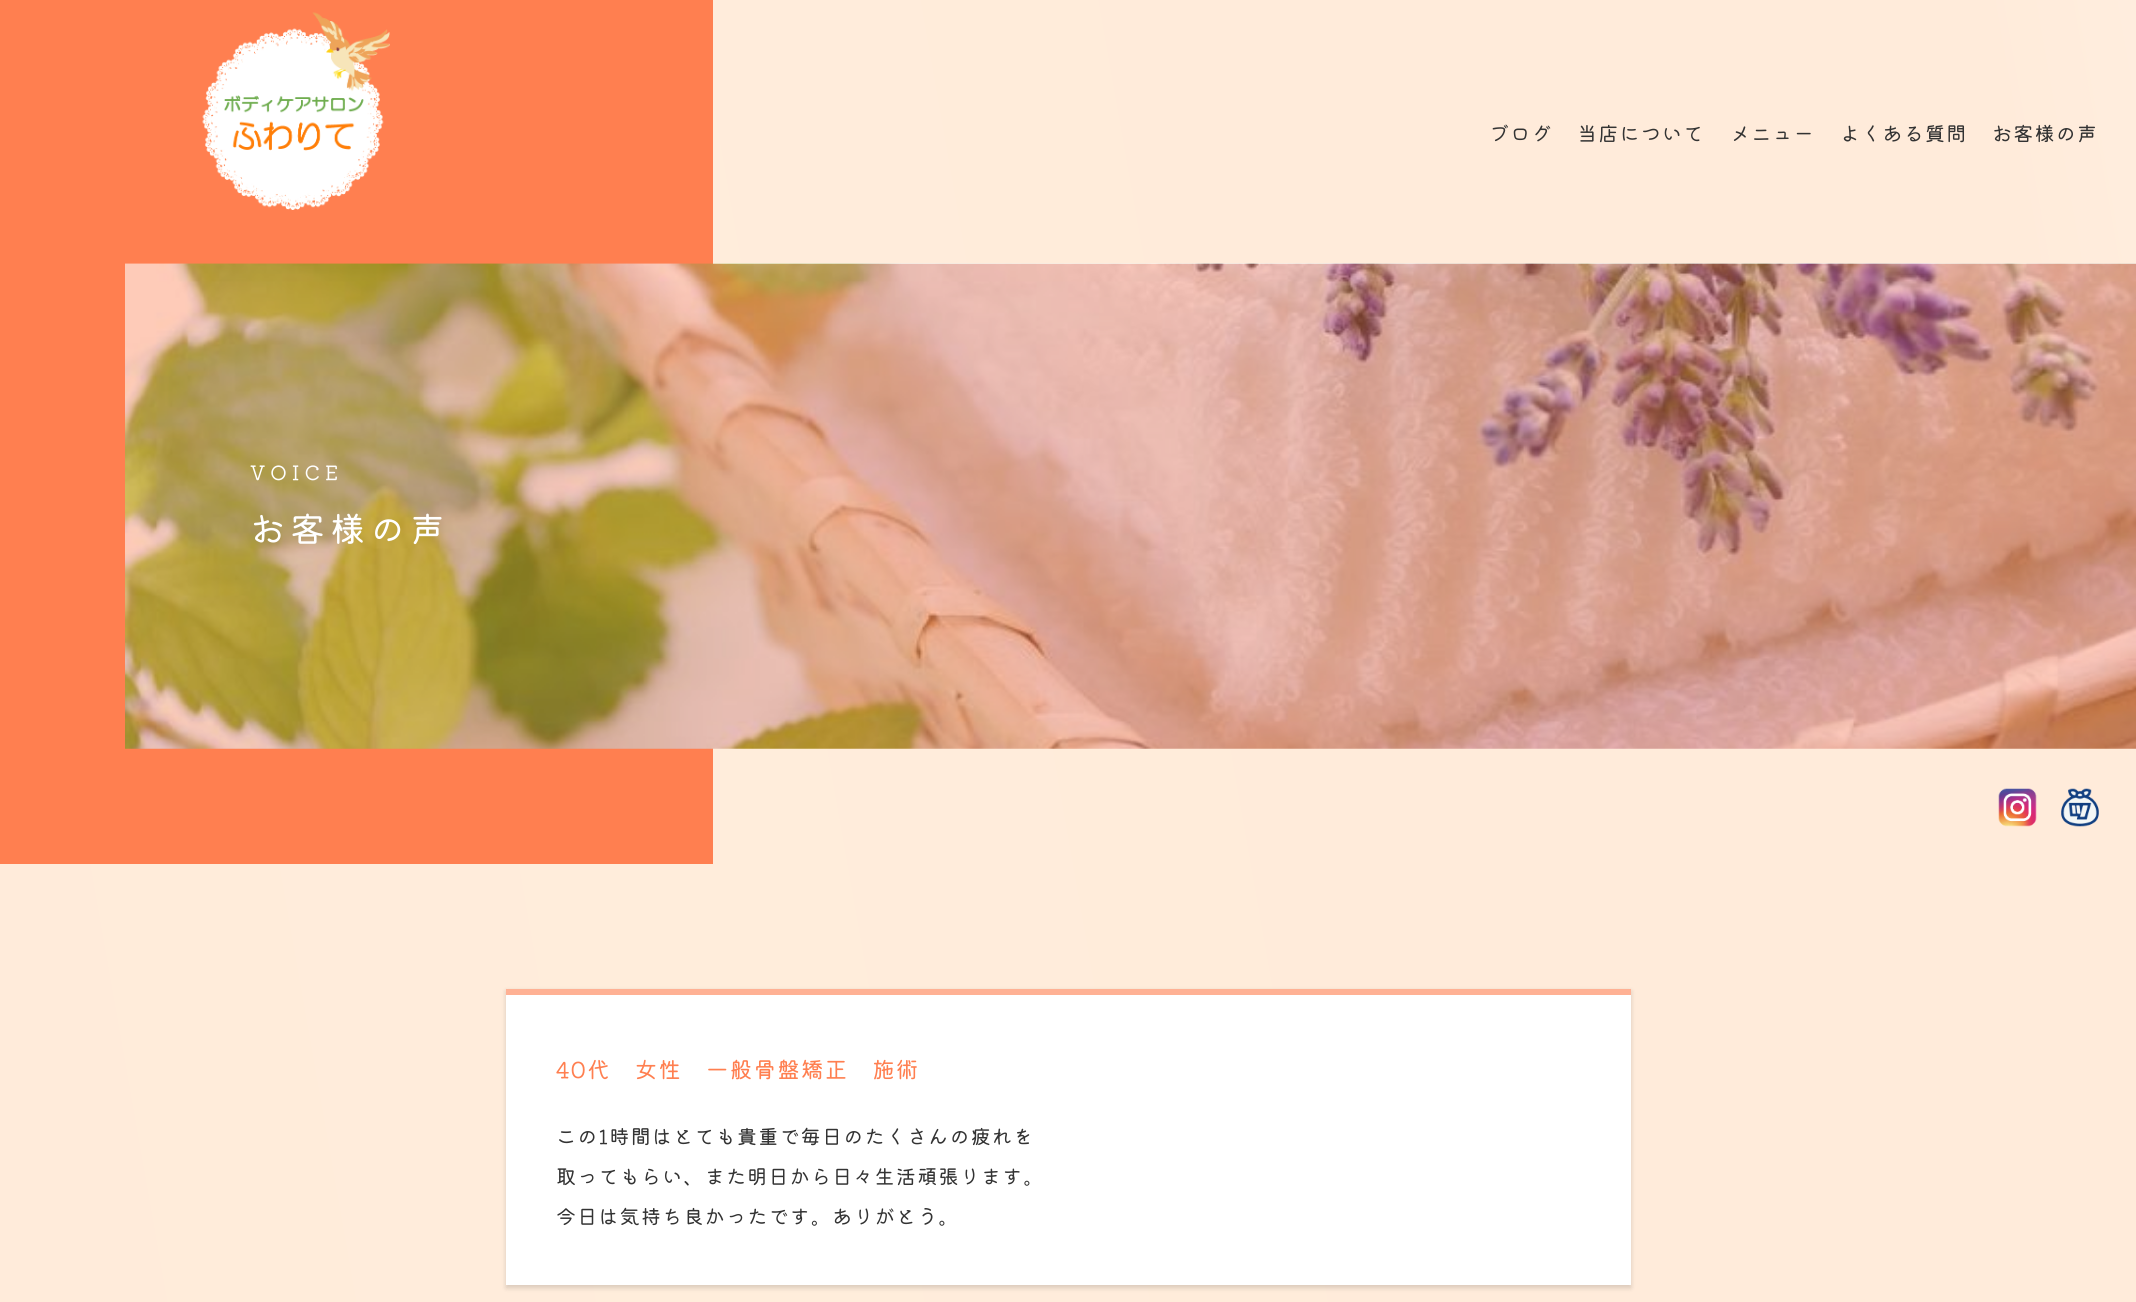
import math
import cairo

surface = cairo.ImageSurface(cairo.FORMAT_RGB24, 2136, 1302)
ctx = cairo.Context(surface)
options = cairo.FontOptions()
options.set_hint_metrics(cairo.HINT_METRICS_OFF)
options.set_hint_style(cairo.HINT_STYLE_NONE)
ctx.set_font_options(options)
ctx.set_miter_limit(4)


def spaced_text(x, y, s, letter, word):
    ctx.move_to(x, y)
    for ch in s:
        ctx.show_text(ch)
        ctx.rel_move_to(letter + word * (ch == ' '), 0)


def round_rect(x, y, w, h, r):
    ctx.new_sub_path()
    for i, (u, v) in enumerate([(x + w - r, y + h - r), (x + r, y + h - r), (x + r, y + r), (x + w - r, y + r)]):
        ctx.arc(u, v, r, i * math.pi / 2, (i + 1) * math.pi / 2)
    ctx.close_path()


def shadow(x, y, w, h, r, blur, alpha):
    ctx.push_group_with_content(cairo.CONTENT_ALPHA)
    ctx.set_operator(cairo.OPERATOR_SOURCE)
    for i in range(15, -16, -2):
        e = blur * i / 6
        if min(w, h) + 2 * e > 0:
            ctx.set_source_rgba(0, 0, 0, alpha * math.erfc((i - 1) / 8.5) / 2)
            round_rect(x - e, y - e, w + 2 * e, h + 2 * e, max(0, min(r + e + blur * .6, min(w, h) / 2 + e)))
            ctx.fill()
    ctx.mask(ctx.pop_group())


def picture(path, x, y, w, h):
    ctx.save()
    ctx.set_source_surface(cairo.ImageSurface.create_from_png(path), x, y)
    ctx.rectangle(x, y, w, h)
    ctx.fill()
    ctx.restore()


ctx.set_source_rgb(1, 1, 1)
ctx.paint()
gradient = cairo.LinearGradient(-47, 1036, 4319, 266)
gradient.add_color_stop_rgba(0, 1, 0.922, 0.855, 1)
gradient.add_color_stop_rgba(0.17, 1, 0.929, 0.859, 1)
gradient.add_color_stop_rgba(0.33, 1, 0.922, 0.855, 1)
gradient.add_color_stop_rgba(0.49, 1, 0.922, 0.855, 1)
gradient.add_color_stop_rgba(0.66, 1, 0.965, 0.929, 1)
gradient.add_color_stop_rgba(0.82, 1, 0.922, 0.855, 1)
gradient.add_color_stop_rgba(1, 1, 0.949, 0.894, 1)
ctx.set_source(gradient)
ctx.rectangle(0, 0, 2136, 1302)
ctx.fill()
ctx.set_source_rgb(1, 0.498, 0.314)
ctx.rectangle(0, 0, 713, 864)
ctx.fill()
picture("img1.png", 202, 12, 188, 198)
ctx.select_font_face("Kiwi Maru")
ctx.set_font_size(20)
ctx.set_source_rgb(0.2, 0.2, 0.2)
spaced_text(1489, 141, "ブログ", 1.25, 0)
spaced_text(1577, 141, "当店について", 1.25, 0)
spaced_text(1730, 141, "メニュー", 1.25, 0)
spaced_text(1840, 141, "よくある質問", 1.25, 0)
spaced_text(1992, 141, "お客様の声", 1.25, 0)
picture("img2.png", 125, 263, 2011, 486)
ctx.set_source_rgb(1, 1, 1)
spaced_text(250, 480, "VOICE", 5, 0)
ctx.set_font_size(35)
spaced_text(250, 542, "お客様の声", 5, 0)
picture("img3.png", 1998, 788, 39, 39)
picture("img4.png", 2061, 788, 38, 39)
ctx.set_source_rgb(0, 0, 0)
shadow(506, 991, 1125, 297, 0, 2.5, 0.15)
ctx.set_source_rgb(1, 1, 1)
ctx.rectangle(506, 995, 1125, 290)
ctx.fill()
ctx.set_source_rgb(1, 0.694, 0.58)
ctx.rectangle(506, 989, 1125, 6)
ctx.fill()
ctx.set_font_size(22.5)
ctx.set_source_rgb(1, 0.498, 0.314)
spaced_text(556, 1078, "40代　女性　一般骨盤矯正　施術", 1.25, 0)
ctx.set_font_size(20)
ctx.set_source_rgb(0.2, 0.2, 0.2)
spaced_text(556, 1144, "この1時間はとても貴重で毎日のたくさんの疲れを", 1.25, 0)
spaced_text(556, 1184, "取ってもらい、また明日から日々生活頑張ります。", 1.25, 0)
spaced_text(556, 1224, "今日は気持ち良かったです。ありがとう。", 1.25, 0)
surface.write_to_png("page.png")
